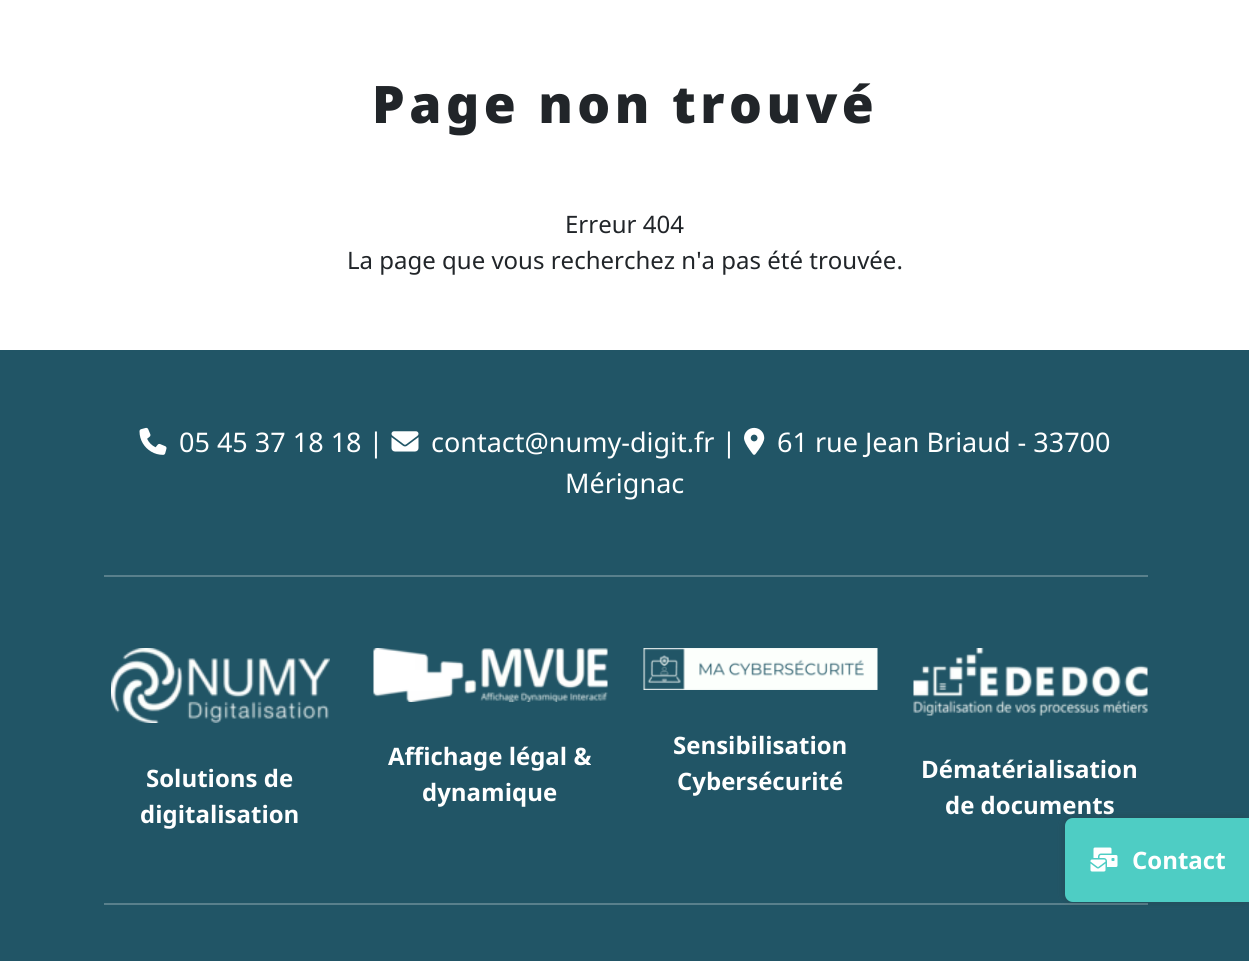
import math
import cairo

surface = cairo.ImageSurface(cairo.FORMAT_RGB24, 1249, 961)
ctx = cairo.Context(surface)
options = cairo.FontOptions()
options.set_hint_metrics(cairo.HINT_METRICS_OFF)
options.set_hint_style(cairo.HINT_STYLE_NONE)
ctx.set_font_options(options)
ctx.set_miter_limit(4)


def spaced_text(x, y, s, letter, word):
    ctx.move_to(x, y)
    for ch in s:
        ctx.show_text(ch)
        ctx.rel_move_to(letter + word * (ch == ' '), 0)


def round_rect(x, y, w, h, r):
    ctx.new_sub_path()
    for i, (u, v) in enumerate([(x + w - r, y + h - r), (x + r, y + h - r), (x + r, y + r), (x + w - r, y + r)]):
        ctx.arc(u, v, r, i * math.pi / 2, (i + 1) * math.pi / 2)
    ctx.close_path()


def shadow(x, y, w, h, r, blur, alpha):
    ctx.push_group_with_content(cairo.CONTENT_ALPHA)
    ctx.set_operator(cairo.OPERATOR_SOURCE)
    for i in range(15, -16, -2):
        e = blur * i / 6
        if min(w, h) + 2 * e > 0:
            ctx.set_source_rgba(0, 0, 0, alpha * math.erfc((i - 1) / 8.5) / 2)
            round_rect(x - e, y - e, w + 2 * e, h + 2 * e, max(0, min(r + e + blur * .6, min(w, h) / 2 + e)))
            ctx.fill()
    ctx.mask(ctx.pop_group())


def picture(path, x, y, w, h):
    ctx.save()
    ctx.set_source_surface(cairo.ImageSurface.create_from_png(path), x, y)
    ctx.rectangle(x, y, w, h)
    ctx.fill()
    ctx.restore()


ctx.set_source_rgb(1, 1, 1)
ctx.paint()
ctx.select_font_face("Noto Sans Black")
ctx.set_font_size(51.75)
ctx.set_source_rgb(0.129, 0.145, 0.161)
spaced_text(372, 123, "Page non trouvé", 4.5, 0)
ctx.select_font_face("Noto Sans")
ctx.set_font_size(24)
ctx.move_to(565, 233)
ctx.show_text("Erreur 404")
ctx.move_to(347, 269)
ctx.show_text("La page que vous recherchez n'a pas été trouvée.")
ctx.set_source_rgb(0.129, 0.333, 0.4)
ctx.rectangle(0, 350, 1249, 611)
ctx.fill()
picture("img1.png", 139, 427, 28, 28)
ctx.set_font_size(27)
ctx.set_source_rgb(1, 1, 1)
ctx.move_to(179, 452)
ctx.show_text("05 45 37 18 18 |")
picture("img2.png", 391, 431, 28, 21)
ctx.move_to(431, 452)
ctx.show_text("contact@numy-digit.fr |")
picture("img3.png", 744, 427, 21, 28)
ctx.move_to(777, 452)
ctx.show_text("61 rue Jean Briaud - 33700")
ctx.move_to(565, 493)
ctx.show_text("Mérignac")
ctx.set_source_rgb(0.349, 0.502, 0.549)
ctx.rectangle(104, 575, 1044, 2)
ctx.fill()
picture("img4.png", 111, 648, 219, 75)
ctx.select_font_face("Noto Sans", cairo.FONT_SLANT_NORMAL, cairo.FONT_WEIGHT_BOLD)
ctx.set_font_size(24)
ctx.set_source_rgb(1, 1, 1)
ctx.move_to(146, 787)
ctx.show_text("Solutions de")
ctx.move_to(140, 823)
ctx.show_text("digitalisation")
picture("img5.png", 373, 648, 235, 54)
ctx.move_to(388, 765)
ctx.show_text("Affichage légal &")
ctx.move_to(422, 801)
ctx.show_text("dynamique")
picture("img6.png", 643, 648, 235, 42)
ctx.move_to(673, 754)
ctx.show_text("Sensibilisation")
ctx.move_to(677, 790)
ctx.show_text("Cybersécurité")
picture("img7.png", 913, 648, 235, 68)
ctx.move_to(921, 778)
ctx.show_text("Dématérialisation")
ctx.move_to(945, 814)
ctx.show_text("de documents")
ctx.set_source_rgb(0.349, 0.502, 0.549)
ctx.rectangle(104, 903, 1044, 2)
ctx.fill()
ctx.set_source_rgb(0.173, 0.173, 0.173)
shadow(1065, 818, 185, 84, 8, 4, 0.3)
ctx.set_source_rgb(0.306, 0.804, 0.769)
ctx.new_path()
ctx.move_to(1073, 818)
ctx.line_to(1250, 818)
ctx.line_to(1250, 902)
ctx.line_to(1073, 902)
ctx.curve_to(1068.5, 902, 1065, 898.5, 1065, 894)
ctx.line_to(1065, 826)
ctx.curve_to(1065, 821.5, 1068.5, 818, 1073, 818)
ctx.close_path()
ctx.fill()
picture("img8.png", 1090, 847, 28, 25)
ctx.set_source_rgb(1, 1, 1)
ctx.move_to(1132, 869)
ctx.show_text("Contact")
surface.write_to_png("page.png")
